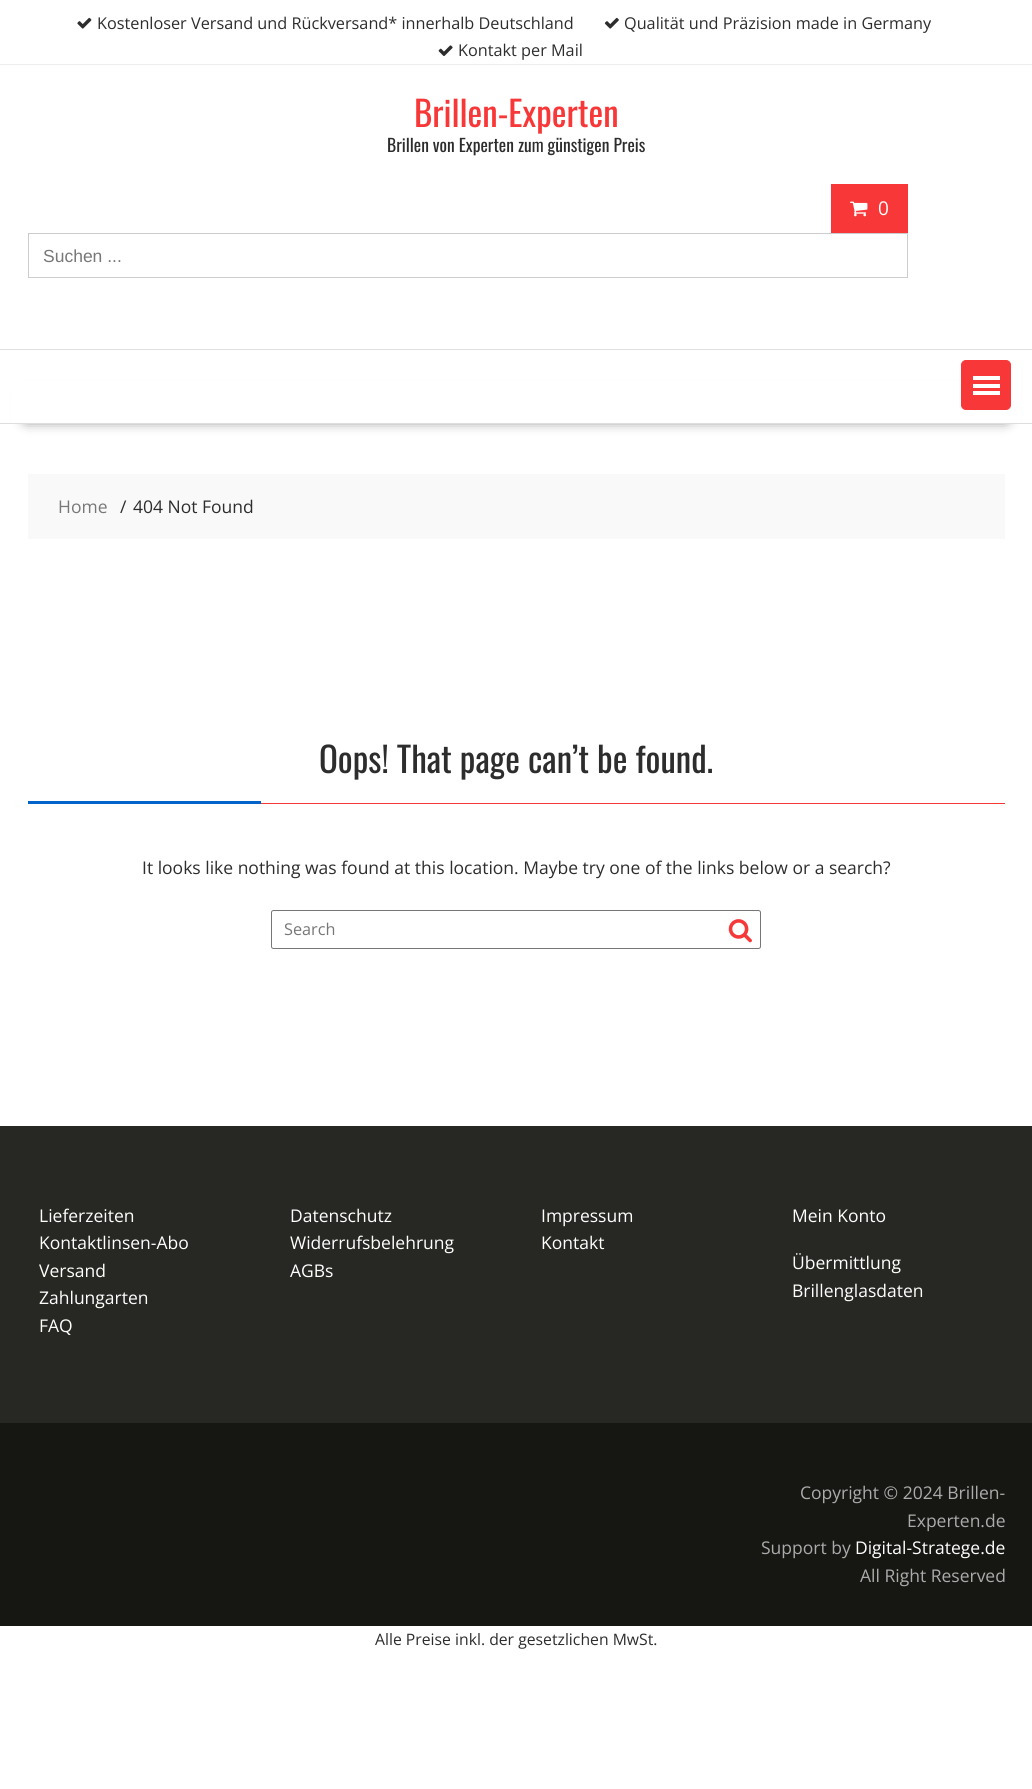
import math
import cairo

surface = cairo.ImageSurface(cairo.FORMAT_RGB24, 1032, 1789)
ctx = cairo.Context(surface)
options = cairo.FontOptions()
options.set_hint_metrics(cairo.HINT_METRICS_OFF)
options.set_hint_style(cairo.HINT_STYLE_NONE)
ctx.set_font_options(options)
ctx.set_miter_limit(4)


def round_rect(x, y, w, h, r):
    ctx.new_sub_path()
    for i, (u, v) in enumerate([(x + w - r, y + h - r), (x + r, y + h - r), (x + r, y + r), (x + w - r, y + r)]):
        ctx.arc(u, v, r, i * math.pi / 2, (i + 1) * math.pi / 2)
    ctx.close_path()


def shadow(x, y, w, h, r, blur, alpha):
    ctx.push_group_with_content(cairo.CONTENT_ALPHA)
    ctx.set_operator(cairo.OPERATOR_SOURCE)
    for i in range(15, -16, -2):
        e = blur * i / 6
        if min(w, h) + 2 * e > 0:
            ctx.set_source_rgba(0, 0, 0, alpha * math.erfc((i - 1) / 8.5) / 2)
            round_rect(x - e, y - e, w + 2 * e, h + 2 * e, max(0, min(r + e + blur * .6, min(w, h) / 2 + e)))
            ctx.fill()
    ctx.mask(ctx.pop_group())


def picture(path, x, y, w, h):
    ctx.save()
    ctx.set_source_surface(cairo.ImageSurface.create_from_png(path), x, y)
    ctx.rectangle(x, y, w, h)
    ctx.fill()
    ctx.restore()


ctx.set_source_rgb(1, 1, 1)
ctx.paint()
ctx.set_source_rgb(0.933, 0.933, 0.933)
ctx.rectangle(0, 64, 1032, 1)
ctx.fill()
picture("img1.png", 77, 17, 15, 12)
ctx.select_font_face("Open Sans")
ctx.set_font_size(16.25)
ctx.set_source_rgb(0.176, 0.176, 0.176)
ctx.move_to(97, 29)
ctx.show_text("Kostenloser Versand und Rückversand* innerhalb Deutschland")
picture("img2.png", 604, 17, 15, 12)
ctx.move_to(624, 29)
ctx.show_text("Qualität und Präzision made in Germany")
picture("img3.png", 438, 45, 15, 11)
ctx.move_to(458, 56)
ctx.show_text("Kontakt per Mail")
ctx.select_font_face("Oswald")
ctx.set_font_size(35)
ctx.set_source_rgb(0.969, 0.22, 0.22)
ctx.move_to(414, 127)
ctx.show_text("Brillen-Experten")
ctx.set_font_size(17.5)
ctx.set_source_rgb(0.176, 0.176, 0.176)
ctx.move_to(387, 152)
ctx.show_text("Brillen von Experten zum günstigen Preis")
ctx.set_source_rgb(0.969, 0.22, 0.22)
ctx.rectangle(831, 184, 77, 49)
ctx.fill()
picture("img4.png", 850, 201, 18, 16)
ctx.select_font_face("Open Sans")
ctx.set_font_size(19)
ctx.set_source_rgb(1, 1, 1)
ctx.move_to(878, 215)
ctx.show_text("0")
ctx.rectangle(28.5, 233.5, 879, 44)
ctx.set_source_rgb(0.8, 0.8, 0.8)
ctx.set_line_width(1)
ctx.stroke()
ctx.select_font_face("Liberation Sans")
ctx.set_font_size(17.5)
ctx.set_source_rgb(0.467, 0.467, 0.467)
ctx.move_to(43, 262)
ctx.show_text("Suchen ...")
ctx.set_source_rgb(0, 0, 0)
shadow(26, 396, 980, 23, 0, 7, 0.75)
ctx.set_source_rgb(1, 1, 1)
ctx.rectangle(11, 381, 1010, 42)
ctx.fill()
ctx.set_source_rgb(0.871, 0.871, 0.871)
ctx.rectangle(0, 349, 1032, 1)
ctx.fill()
ctx.rectangle(0, 423, 1032, 1)
ctx.fill()
ctx.set_source_rgb(0.969, 0.22, 0.22)
round_rect(961.5, 360.5, 49, 49, 4.5)
ctx.fill_preserve()
ctx.stroke()
ctx.set_source_rgb(1, 1, 1)
ctx.rectangle(973, 391, 27, 4)
ctx.fill()
ctx.rectangle(973, 384, 27, 4)
ctx.fill()
ctx.rectangle(973, 376, 27, 4)
ctx.fill()
ctx.set_source_rgb(0.973, 0.973, 0.973)
ctx.rectangle(28, 474, 977, 65)
ctx.fill()
ctx.select_font_face("Open Sans")
ctx.set_source_rgb(0.467, 0.467, 0.467)
ctx.move_to(58, 513)
ctx.show_text("Home")
ctx.set_source_rgb(0.176, 0.176, 0.176)
ctx.move_to(120, 513)
ctx.show_text("/")
ctx.move_to(133, 513)
ctx.show_text("404 Not Found")
ctx.set_source_rgb(0.969, 0.22, 0.22)
ctx.rectangle(261, 803, 744, 1)
ctx.fill()
ctx.select_font_face("Oswald")
ctx.set_font_size(35)
ctx.set_source_rgb(0.176, 0.176, 0.176)
ctx.move_to(319, 773)
ctx.show_text("Oops! That page can’t be found.")
ctx.set_source_rgb(0.008, 0.388, 0.792)
ctx.rectangle(28, 801, 233, 3)
ctx.fill()
ctx.select_font_face("Open Sans")
ctx.set_font_size(17.5)
ctx.set_source_rgb(0.176, 0.176, 0.176)
ctx.move_to(142, 874)
ctx.show_text("It looks like nothing was found at this location. Maybe try one of the links below or a search?")
round_rect(271.5, 910.5, 489, 38, 2)
ctx.set_source_rgb(0.463, 0.463, 0.463)
ctx.stroke()
ctx.set_font_size(16.25)
ctx.set_source_rgb(0.467, 0.467, 0.467)
ctx.move_to(284, 935)
ctx.show_text("Search")
picture("img5.png", 728, 919, 24, 24)
ctx.set_source_rgb(0.153, 0.157, 0.137)
ctx.rectangle(0, 1126, 1032, 297)
ctx.fill()
ctx.set_font_size(17.5)
ctx.set_source_rgb(1, 1, 1)
ctx.move_to(39, 1222)
ctx.show_text("Lieferzeiten")
ctx.move_to(39, 1249)
ctx.show_text("Kontaktlinsen-Abo")
ctx.move_to(39, 1277)
ctx.show_text("Versand")
ctx.move_to(39, 1304)
ctx.show_text("Zahlungarten")
ctx.move_to(39, 1332)
ctx.show_text("FAQ")
ctx.move_to(290, 1222)
ctx.show_text("Datenschutz")
ctx.move_to(290, 1249)
ctx.show_text("Widerrufsbelehrung")
ctx.move_to(290, 1277)
ctx.show_text("AGBs")
ctx.move_to(541, 1222)
ctx.show_text("Impressum")
ctx.move_to(541, 1249)
ctx.show_text("Kontakt")
ctx.move_to(792, 1222)
ctx.show_text("Mein Konto")
ctx.move_to(792, 1269)
ctx.show_text("Übermittlung")
ctx.move_to(792, 1297)
ctx.show_text("Brillenglasdaten")
ctx.set_source_rgb(0.086, 0.086, 0.078)
ctx.rectangle(0, 1423, 1032, 203)
ctx.fill()
ctx.set_source_rgb(0.671, 0.671, 0.671)
ctx.move_to(800, 1499)
ctx.show_text("Copyright © 2024 Brillen-")
ctx.move_to(907, 1527)
ctx.show_text("Experten.de")
ctx.move_to(761, 1554)
ctx.show_text("Support by")
ctx.set_source_rgb(1, 1, 1)
ctx.move_to(855, 1554)
ctx.show_text("Digital-Stratege.de")
ctx.set_source_rgb(0.671, 0.671, 0.671)
ctx.move_to(860, 1582)
ctx.show_text("All Right Reserved")
ctx.set_font_size(15.75)
ctx.set_source_rgb(0.176, 0.176, 0.176)
ctx.move_to(375, 1645)
ctx.show_text("Alle Preise inkl. der gesetzlichen MwSt.")
surface.write_to_png("page.png")
